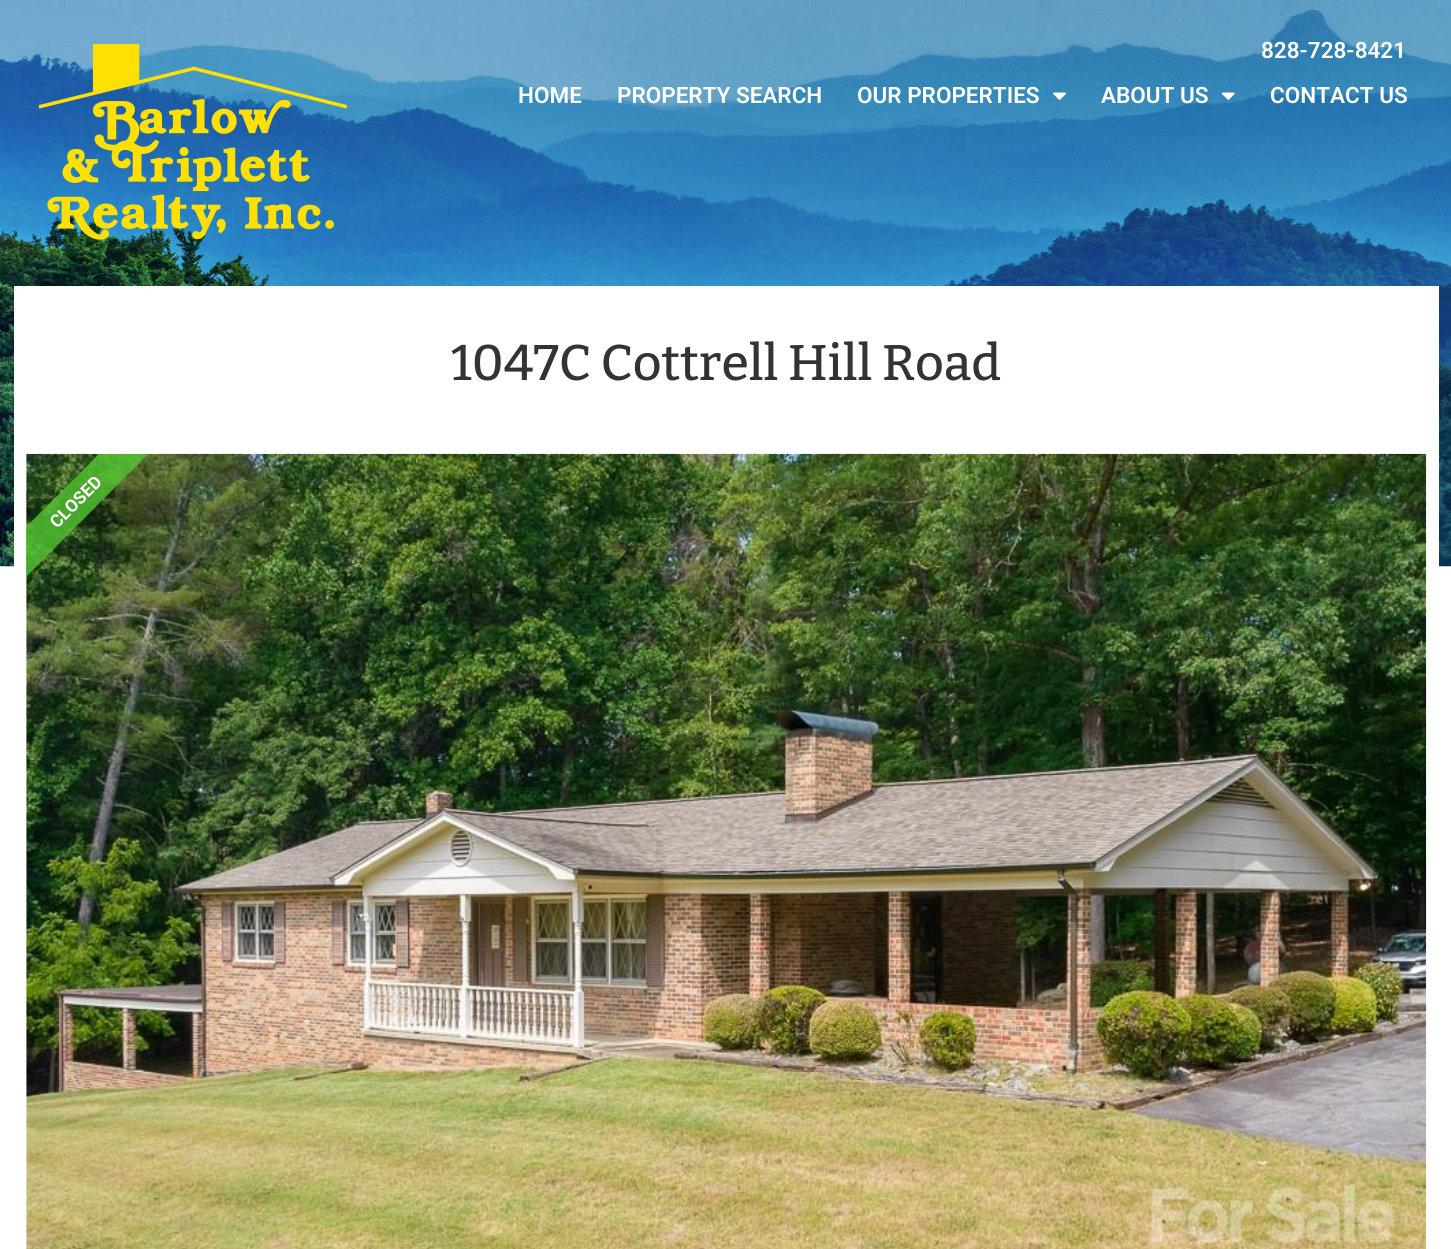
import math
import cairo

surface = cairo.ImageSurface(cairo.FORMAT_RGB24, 1451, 1249)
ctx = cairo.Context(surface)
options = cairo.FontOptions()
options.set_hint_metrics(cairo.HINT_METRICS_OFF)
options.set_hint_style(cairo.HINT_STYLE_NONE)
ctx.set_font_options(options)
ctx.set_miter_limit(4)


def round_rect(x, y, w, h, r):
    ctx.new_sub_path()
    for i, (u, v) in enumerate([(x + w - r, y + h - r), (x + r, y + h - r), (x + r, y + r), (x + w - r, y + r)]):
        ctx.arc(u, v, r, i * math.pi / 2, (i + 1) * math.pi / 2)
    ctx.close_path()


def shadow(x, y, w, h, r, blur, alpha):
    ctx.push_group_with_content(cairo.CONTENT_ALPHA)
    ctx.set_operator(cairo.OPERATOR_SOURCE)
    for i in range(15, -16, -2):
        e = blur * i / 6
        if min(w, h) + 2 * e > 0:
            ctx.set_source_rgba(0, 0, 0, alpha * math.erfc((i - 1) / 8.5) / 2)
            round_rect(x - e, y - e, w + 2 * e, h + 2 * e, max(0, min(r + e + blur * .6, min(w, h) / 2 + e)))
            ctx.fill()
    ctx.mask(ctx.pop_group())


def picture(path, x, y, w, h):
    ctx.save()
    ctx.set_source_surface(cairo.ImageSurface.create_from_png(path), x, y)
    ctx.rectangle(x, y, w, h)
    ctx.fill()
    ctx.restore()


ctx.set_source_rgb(1, 1, 1)
ctx.paint()
picture("img1.png", 0, 0, 1451, 567)
picture("img2.png", 38, 44, 310, 196)
ctx.select_font_face("Roboto SemiBold")
ctx.set_font_size(22.5)
ctx.set_source_rgb(1, 1, 1)
ctx.move_to(1261, 58)
ctx.show_text("828-728-8421")
ctx.move_to(518, 103)
ctx.show_text("HOME")
ctx.move_to(617, 103)
ctx.show_text("PROPERTY SEARCH")
ctx.move_to(857, 103)
ctx.show_text("OUR PROPERTIES")
picture("img3.png", 1053, 92, 13, 8)
ctx.move_to(1101, 103)
ctx.show_text("ABOUT US")
picture("img4.png", 1221, 92, 14, 8)
ctx.move_to(1270, 103)
ctx.show_text("CONTACT US")
ctx.rectangle(14, 286, 1425, 281)
ctx.fill()
ctx.select_font_face("Bitter Medium")
ctx.set_font_size(50)
ctx.set_source_rgb(0.2, 0.2, 0.2)
ctx.move_to(451, 380)
ctx.show_text("1047C Cottrell Hill Road")
picture("img5.png", 26, 453, 1401, 796)
ctx.save()
ctx.rectangle(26, 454, 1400, 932)
ctx.clip()
ctx.set_fill_rule(cairo.FILL_RULE_EVEN_ODD)
ctx.new_path()
ctx.move_to(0, 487)
ctx.line_to(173, 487)
ctx.line_to(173, 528)
ctx.line_to(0, 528)
ctx.close_path()
ctx.move_to(-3, 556)
ctx.line_to(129.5, 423.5)
ctx.line_to(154.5, 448)
ctx.line_to(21.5, 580.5)
ctx.close_path()
ctx.clip()
ctx.set_source_rgb(0, 0, 0)
shadow(-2, 490, 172, 35, 0, 0.5, 0.2)
ctx.restore()
ctx.save()
ctx.rectangle(26, 454, 1400, 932)
ctx.clip()
ctx.set_source_rgba(0.325, 0.765, 0.192, 0.8)
ctx.new_path()
ctx.move_to(-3, 556)
ctx.line_to(130, 423)
ctx.line_to(154, 448)
ctx.line_to(22, 581)
ctx.close_path()
ctx.fill()
ctx.restore()
ctx.select_font_face("Roboto", cairo.FONT_SLANT_NORMAL, cairo.FONT_WEIGHT_BOLD)
ctx.set_font_size(17.5)
ctx.set_source_rgb(1, 1, 1)
ctx.save()
ctx.translate(57, 529)
ctx.rotate(-45 * math.pi / 180)
ctx.move_to(0, 0)
ctx.show_text("CLOSED")
ctx.restore()
surface.write_to_png("page.png")
